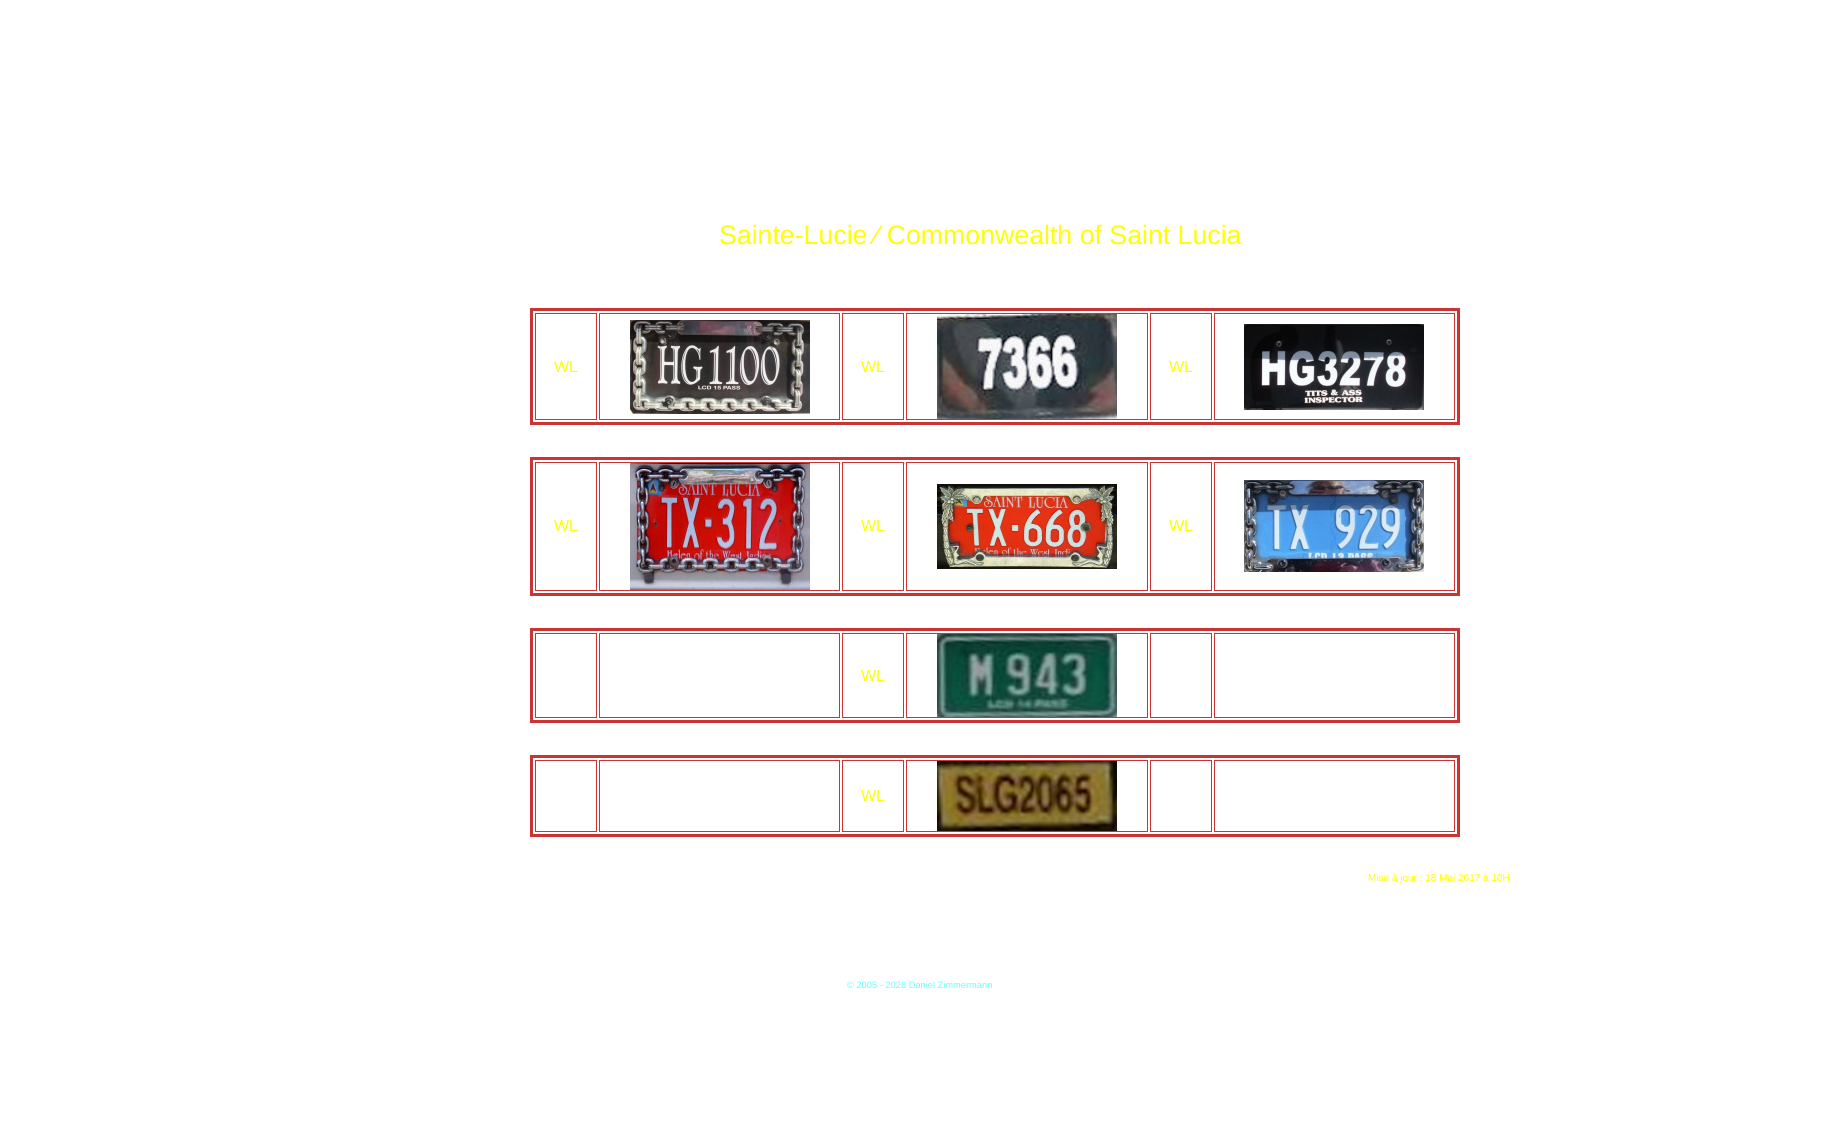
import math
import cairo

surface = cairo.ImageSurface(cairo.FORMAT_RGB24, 1840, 1133)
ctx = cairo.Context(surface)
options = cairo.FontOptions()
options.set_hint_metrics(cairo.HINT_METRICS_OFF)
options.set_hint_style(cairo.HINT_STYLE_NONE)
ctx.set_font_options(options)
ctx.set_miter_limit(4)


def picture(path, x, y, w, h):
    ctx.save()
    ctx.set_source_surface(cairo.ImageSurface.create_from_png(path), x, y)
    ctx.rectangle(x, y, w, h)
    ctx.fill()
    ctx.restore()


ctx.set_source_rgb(1, 1, 1)
ctx.paint()
ctx.select_font_face("Liberation Sans")
ctx.set_font_size(26.7)
ctx.set_source_rgb(1, 1, 0)
ctx.move_to(719, 244)
ctx.show_text("Sainte-Lucie ⁄ Commonwealth of Saint Lucia")
ctx.rectangle(531.5, 309.5, 927, 114)
ctx.set_source_rgb(0.8, 0.2, 0.2)
ctx.set_line_width(3)
ctx.stroke()
ctx.rectangle(535.5, 313.5, 61, 106)
ctx.set_line_width(1)
ctx.stroke()
ctx.set_font_size(16)
ctx.set_source_rgb(1, 1, 0)
ctx.move_to(554, 372)
ctx.show_text("WL")
ctx.rectangle(599.5, 313.5, 240, 106)
ctx.set_source_rgb(0.8, 0.2, 0.2)
ctx.stroke()
picture("img1.png", 630, 320, 180, 94)
ctx.rectangle(842.5, 313.5, 61, 106)
ctx.stroke()
ctx.set_source_rgb(1, 1, 0)
ctx.move_to(861, 372)
ctx.show_text("WL")
ctx.rectangle(906.5, 313.5, 241, 106)
ctx.set_source_rgb(0.8, 0.2, 0.2)
ctx.stroke()
picture("img2.png", 937, 314, 180, 105)
ctx.rectangle(1150.5, 313.5, 61, 106)
ctx.stroke()
ctx.set_source_rgb(1, 1, 0)
ctx.move_to(1169, 372)
ctx.show_text("WL")
ctx.rectangle(1214.5, 313.5, 240, 106)
ctx.set_source_rgb(0.8, 0.2, 0.2)
ctx.stroke()
picture("img3.png", 1244, 324, 180, 86)
ctx.rectangle(531.5, 458.5, 927, 136)
ctx.set_line_width(3)
ctx.stroke()
ctx.rectangle(535.5, 462.5, 61, 128)
ctx.set_line_width(1)
ctx.stroke()
ctx.set_source_rgb(1, 1, 0)
ctx.move_to(554, 531)
ctx.show_text("WL")
ctx.rectangle(599.5, 462.5, 240, 128)
ctx.set_source_rgb(0.8, 0.2, 0.2)
ctx.stroke()
picture("img4.png", 630, 463, 180, 127)
ctx.rectangle(842.5, 462.5, 61, 128)
ctx.stroke()
ctx.set_source_rgb(1, 1, 0)
ctx.move_to(861, 531)
ctx.show_text("WL")
ctx.rectangle(906.5, 462.5, 241, 128)
ctx.set_source_rgb(0.8, 0.2, 0.2)
ctx.stroke()
picture("img5.png", 937, 484, 180, 85)
ctx.rectangle(1150.5, 462.5, 61, 128)
ctx.stroke()
ctx.set_source_rgb(1, 1, 0)
ctx.move_to(1169, 531)
ctx.show_text("WL")
ctx.rectangle(1214.5, 462.5, 240, 128)
ctx.set_source_rgb(0.8, 0.2, 0.2)
ctx.stroke()
picture("img6.png", 1244, 480, 180, 92)
ctx.rectangle(531.5, 629.5, 927, 92)
ctx.set_line_width(3)
ctx.stroke()
ctx.rectangle(535.5, 633.5, 61, 84)
ctx.set_line_width(1)
ctx.stroke()
ctx.rectangle(599.5, 633.5, 240, 84)
ctx.stroke()
ctx.rectangle(842.5, 633.5, 61, 84)
ctx.stroke()
ctx.set_source_rgb(1, 1, 0)
ctx.move_to(861, 681)
ctx.show_text("WL")
ctx.rectangle(906.5, 633.5, 241, 84)
ctx.set_source_rgb(0.8, 0.2, 0.2)
ctx.stroke()
picture("img7.png", 937, 634, 180, 83)
ctx.rectangle(1150.5, 633.5, 61, 84)
ctx.stroke()
ctx.rectangle(1214.5, 633.5, 240, 84)
ctx.stroke()
ctx.rectangle(531.5, 756.5, 927, 79)
ctx.set_line_width(3)
ctx.stroke()
ctx.rectangle(535.5, 760.5, 61, 71)
ctx.set_line_width(1)
ctx.stroke()
ctx.rectangle(599.5, 760.5, 240, 71)
ctx.stroke()
ctx.rectangle(842.5, 760.5, 61, 71)
ctx.stroke()
ctx.set_source_rgb(1, 1, 0)
ctx.move_to(861, 801)
ctx.show_text("WL")
ctx.rectangle(906.5, 760.5, 241, 71)
ctx.set_source_rgb(0.8, 0.2, 0.2)
ctx.stroke()
picture("img8.png", 937, 761, 180, 70)
ctx.rectangle(1150.5, 760.5, 61, 71)
ctx.stroke()
ctx.rectangle(1214.5, 760.5, 240, 71)
ctx.stroke()
ctx.set_font_size(10)
ctx.set_source_rgb(1, 1, 0)
ctx.move_to(1368, 881)
ctx.show_text("Mise à jour : 18 Mai 2017 à 10H")
ctx.set_font_size(9.3)
ctx.set_source_rgb(0.4, 1, 1)
ctx.move_to(847, 988)
ctx.show_text("© 2005 - 2026 Daniel Zimmermann")
surface.write_to_png("page.png")
